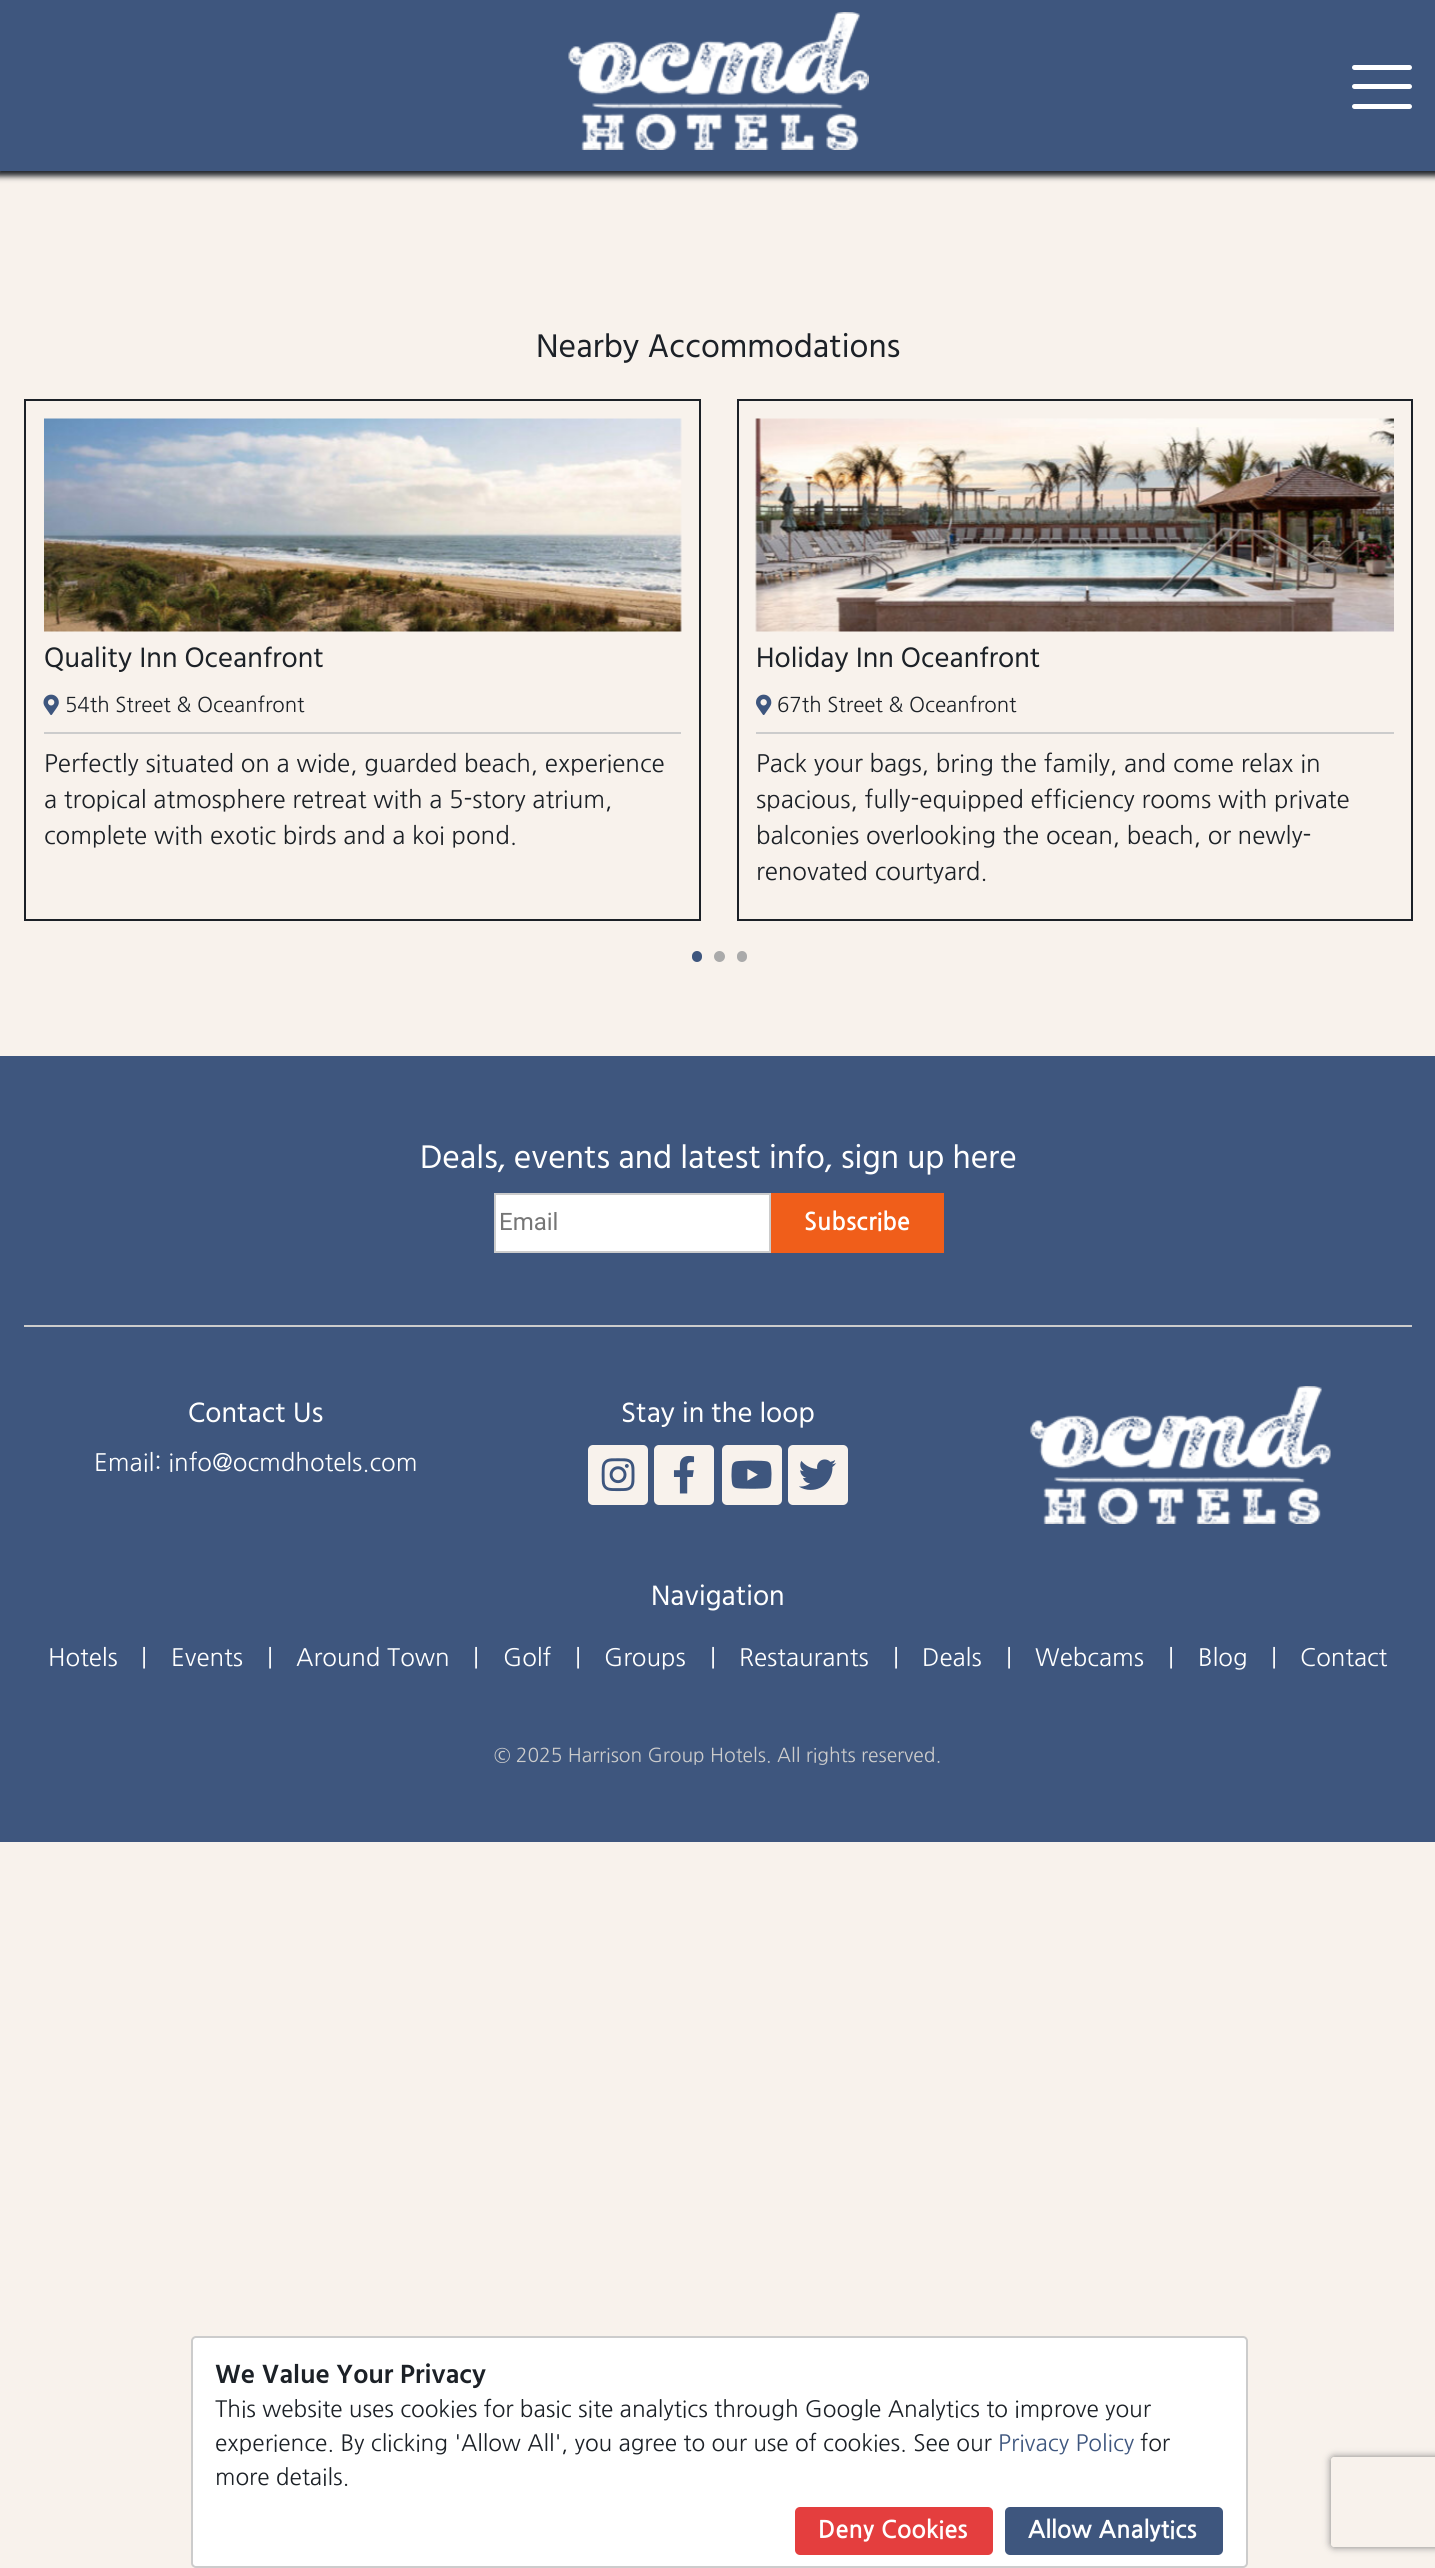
import math
import cairo

surface = cairo.ImageSurface(cairo.FORMAT_RGB24, 1435, 2568)
ctx = cairo.Context(surface)
options = cairo.FontOptions()
options.set_hint_metrics(cairo.HINT_METRICS_OFF)
options.set_hint_style(cairo.HINT_STYLE_NONE)
ctx.set_font_options(options)
ctx.set_miter_limit(4)


def round_rect(x, y, w, h, r):
    ctx.new_sub_path()
    for i, (u, v) in enumerate([(x + w - r, y + h - r), (x + r, y + h - r), (x + r, y + r), (x + w - r, y + r)]):
        ctx.arc(u, v, r, i * math.pi / 2, (i + 1) * math.pi / 2)
    ctx.close_path()


def shadow(x, y, w, h, r, blur, alpha):
    ctx.push_group_with_content(cairo.CONTENT_ALPHA)
    ctx.set_operator(cairo.OPERATOR_SOURCE)
    for i in range(15, -16, -2):
        e = blur * i / 6
        if min(w, h) + 2 * e > 0:
            ctx.set_source_rgba(0, 0, 0, alpha * math.erfc((i - 1) / 8.5) / 2)
            round_rect(x - e, y - e, w + 2 * e, h + 2 * e, max(0, min(r + e + blur * .6, min(w, h) / 2 + e)))
            ctx.fill()
    ctx.mask(ctx.pop_group())


def picture(path, x, y, w, h):
    ctx.save()
    ctx.set_source_surface(cairo.ImageSurface.create_from_png(path), x, y)
    ctx.rectangle(x, y, w, h)
    ctx.fill()
    ctx.restore()


ctx.set_source_rgb(0.969, 0.949, 0.925)
ctx.paint()
ctx.set_source_rgb(0.11, 0.129, 0.153)
shadow(-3, -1, 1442, 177, 0, 3, 1)
ctx.set_source_rgb(0.243, 0.337, 0.494)
ctx.rectangle(0, 0, 1435, 171)
ctx.fill()
picture("img1.png", 568, 12, 301, 138)
ctx.set_source_rgb(1, 1, 1)
round_rect(1352, 65, 60, 5, 2.5)
ctx.fill()
round_rect(1352, 84, 60, 5, 2.5)
ctx.fill()
round_rect(1352, 104, 60, 5, 2.5)
ctx.fill()
ctx.select_font_face("Hind")
ctx.set_font_size(33.6)
ctx.set_source_rgb(0.11, 0.129, 0.153)
ctx.move_to(536, 357)
ctx.show_text("Nearby Accommodations")
ctx.rectangle(25, 400, 675, 520)
ctx.stroke()
picture("img2.png", 44, 418, 638, 214)
ctx.set_font_size(28.75)
ctx.move_to(44, 667)
ctx.show_text("Quality Inn Oceanfront")
picture("img3.png", 43, 694, 16, 21)
ctx.select_font_face("NanumGothic")
ctx.set_font_size(20.4)
ctx.move_to(65, 712)
ctx.show_text("54th Street & Oceanfront")
ctx.set_source_rgb(0.8, 0.8, 0.8)
ctx.rectangle(44, 732, 637, 2)
ctx.fill()
ctx.set_font_size(24)
ctx.set_source_rgb(0.11, 0.129, 0.153)
ctx.move_to(44, 772)
ctx.show_text("Perfectly situated on a wide, guarded beach, experience")
ctx.move_to(44, 808)
ctx.show_text("a tropical atmosphere retreat with a 5-story atrium,")
ctx.move_to(44, 844)
ctx.show_text("complete with exotic birds and a koi pond.")
ctx.rectangle(738, 400, 674, 520)
ctx.stroke()
picture("img4.png", 755, 418, 639, 214)
ctx.select_font_face("Hind")
ctx.set_font_size(28.75)
ctx.move_to(756, 667)
ctx.show_text("Holiday Inn Oceanfront")
picture("img5.png", 756, 694, 16, 21)
ctx.select_font_face("NanumGothic")
ctx.set_font_size(20.4)
ctx.move_to(777, 712)
ctx.show_text("67th Street & Oceanfront")
ctx.set_source_rgb(0.8, 0.8, 0.8)
ctx.rectangle(756, 732, 638, 2)
ctx.fill()
ctx.set_font_size(24)
ctx.set_source_rgb(0.11, 0.129, 0.153)
ctx.move_to(756, 772)
ctx.show_text("Pack your bags, bring the family, and come relax in")
ctx.move_to(756, 808)
ctx.show_text("spacious, fully-equipped efficiency rooms with private")
ctx.move_to(756, 844)
ctx.show_text("balconies overlooking the ocean, beach, or newly-")
ctx.move_to(756, 880)
ctx.show_text("renovated courtyard.")
ctx.set_source_rgb(0.243, 0.337, 0.494)
round_rect(692, 951, 10, 11, 5)
ctx.fill()
ctx.set_source_rgb(0.667, 0.667, 0.667)
ctx.arc(719.5, 956.5, 5.5, 0, 2 * math.pi)
ctx.fill()
round_rect(737, 951, 10, 11, 5)
ctx.fill()
ctx.set_source_rgb(0.243, 0.337, 0.494)
ctx.rectangle(0, 1056, 1435, 786)
ctx.fill()
ctx.select_font_face("Hind")
ctx.set_font_size(33.6)
ctx.set_source_rgb(1, 1, 1)
ctx.move_to(420, 1168)
ctx.show_text("Deals, events and latest info, sign up here")
ctx.rectangle(495, 1194, 275, 58)
ctx.fill_preserve()
ctx.set_source_rgb(0.8, 0.8, 0.8)
ctx.stroke()
ctx.select_font_face("Roboto")
ctx.set_font_size(24)
ctx.set_source_rgb(0.459, 0.459, 0.459)
ctx.move_to(499, 1230)
ctx.show_text("Email")
ctx.set_source_rgb(0.941, 0.369, 0.102)
ctx.rectangle(771, 1193, 173, 60)
ctx.fill()
ctx.select_font_face("NanumGothic", cairo.FONT_SLANT_NORMAL, cairo.FONT_WEIGHT_BOLD)
ctx.set_source_rgb(1, 1, 1)
ctx.move_to(804, 1230)
ctx.show_text("Subscribe")
ctx.set_source_rgb(0.8, 0.8, 0.8)
ctx.rectangle(24, 1325, 1388, 2)
ctx.fill()
ctx.select_font_face("Hind")
ctx.set_font_size(28.75)
ctx.set_source_rgb(1, 1, 1)
ctx.move_to(188, 1422)
ctx.show_text("Contact Us")
ctx.select_font_face("NanumGothic")
ctx.set_font_size(24)
ctx.move_to(94, 1471)
ctx.show_text("Email: info@ocmdhotels.com")
ctx.select_font_face("Hind")
ctx.set_font_size(28.75)
ctx.move_to(621, 1422)
ctx.show_text("Stay in the loop")
ctx.set_source_rgb(0.969, 0.949, 0.925)
round_rect(588, 1445, 60, 60, 5)
ctx.fill()
picture("img6.png", 601, 1458, 34, 34)
round_rect(654, 1445, 60, 60, 5)
ctx.fill()
picture("img7.png", 673, 1455, 22, 39)
round_rect(722, 1445, 60, 60, 5)
ctx.fill()
picture("img8.png", 731, 1460, 41, 29)
round_rect(788, 1445, 60, 60, 5)
ctx.fill()
picture("img9.png", 799, 1459, 38, 31)
picture("img10.png", 1030, 1386, 301, 138)
ctx.set_source_rgb(1, 1, 1)
ctx.move_to(651, 1605)
ctx.show_text("Navigation")
ctx.select_font_face("NanumGothic")
ctx.set_font_size(24)
ctx.move_to(48, 1666)
ctx.show_text("Hotels")
ctx.move_to(141, 1666)
ctx.show_text("|")
ctx.move_to(171, 1666)
ctx.show_text("Events")
ctx.move_to(267, 1666)
ctx.show_text("|")
ctx.move_to(296, 1666)
ctx.show_text("Around Town")
ctx.move_to(473, 1666)
ctx.show_text("|")
ctx.move_to(503, 1666)
ctx.show_text("Golf")
ctx.move_to(575, 1666)
ctx.show_text("|")
ctx.move_to(604, 1666)
ctx.show_text("Groups")
ctx.move_to(710, 1666)
ctx.show_text("|")
ctx.move_to(739, 1666)
ctx.show_text("Restaurants")
ctx.move_to(893, 1666)
ctx.show_text("|")
ctx.move_to(922, 1666)
ctx.show_text("Deals")
ctx.move_to(1006, 1666)
ctx.show_text("|")
ctx.move_to(1035, 1666)
ctx.show_text("Webcams")
ctx.move_to(1168, 1666)
ctx.show_text("|")
ctx.move_to(1198, 1666)
ctx.show_text("Blog")
ctx.move_to(1271, 1666)
ctx.show_text("|")
ctx.move_to(1300, 1666)
ctx.show_text("Contact")
ctx.set_font_size(19.2)
ctx.set_source_rgb(0.8, 0.8, 0.8)
ctx.move_to(494, 1762)
ctx.show_text("© 2025 Harrison Group Hotels. All rights reserved.")
ctx.set_source_rgb(1, 1, 1)
round_rect(192, 2337, 1055, 230, 4)
ctx.fill_preserve()
ctx.set_source_rgb(0.8, 0.8, 0.8)
ctx.stroke()
ctx.select_font_face("Hind SemiBold")
ctx.set_font_size(27)
ctx.set_source_rgb(0.11, 0.129, 0.153)
ctx.move_to(215, 2383)
ctx.show_text("We Value Your Privacy")
ctx.select_font_face("NanumGothic")
ctx.set_font_size(22.5)
ctx.move_to(215, 2417)
ctx.show_text("This website uses cookies for basic site analytics through Google Analytics to improve your")
ctx.move_to(215, 2451)
ctx.show_text("experience. By clicking 'Allow All', you agree to our use of cookies. See our")
ctx.set_source_rgb(0.243, 0.337, 0.494)
ctx.move_to(998, 2451)
ctx.show_text("Privacy Policy")
ctx.set_source_rgb(0.11, 0.129, 0.153)
ctx.move_to(1140, 2451)
ctx.show_text("for")
ctx.move_to(215, 2485)
ctx.show_text("more details.")
ctx.set_source_rgb(0.894, 0.243, 0.243)
round_rect(795, 2507, 198, 48, 5)
ctx.fill()
ctx.select_font_face("NanumGothic", cairo.FONT_SLANT_NORMAL, cairo.FONT_WEIGHT_BOLD)
ctx.set_font_size(24)
ctx.set_source_rgb(1, 1, 1)
ctx.move_to(818, 2538)
ctx.show_text("Deny Cookies")
ctx.set_source_rgb(0.243, 0.337, 0.494)
round_rect(1005, 2507, 218, 48, 5)
ctx.fill()
ctx.set_source_rgb(1, 1, 1)
ctx.move_to(1028, 2538)
ctx.show_text("Allow Analytics")
ctx.save()
ctx.set_fill_rule(cairo.FILL_RULE_EVEN_ODD)
ctx.new_path()
ctx.move_to(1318, 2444)
ctx.line_to(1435, 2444)
ctx.line_to(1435, 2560)
ctx.line_to(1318, 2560)
ctx.close_path()
ctx.move_to(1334, 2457)
ctx.line_to(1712, 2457)
ctx.curve_to(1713.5, 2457, 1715, 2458.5, 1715, 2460)
ctx.line_to(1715, 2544)
ctx.curve_to(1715, 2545.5, 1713.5, 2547, 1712, 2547)
ctx.line_to(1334, 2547)
ctx.curve_to(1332.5, 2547, 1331, 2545.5, 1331, 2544)
ctx.line_to(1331, 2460)
ctx.curve_to(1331, 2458.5, 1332.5, 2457, 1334, 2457)
ctx.close_path()
ctx.clip()
ctx.set_source_rgb(0.502, 0.502, 0.502)
shadow(1331, 2457, 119, 90, 3, 4, 1)
ctx.restore()
surface.write_to_png("page.png")
